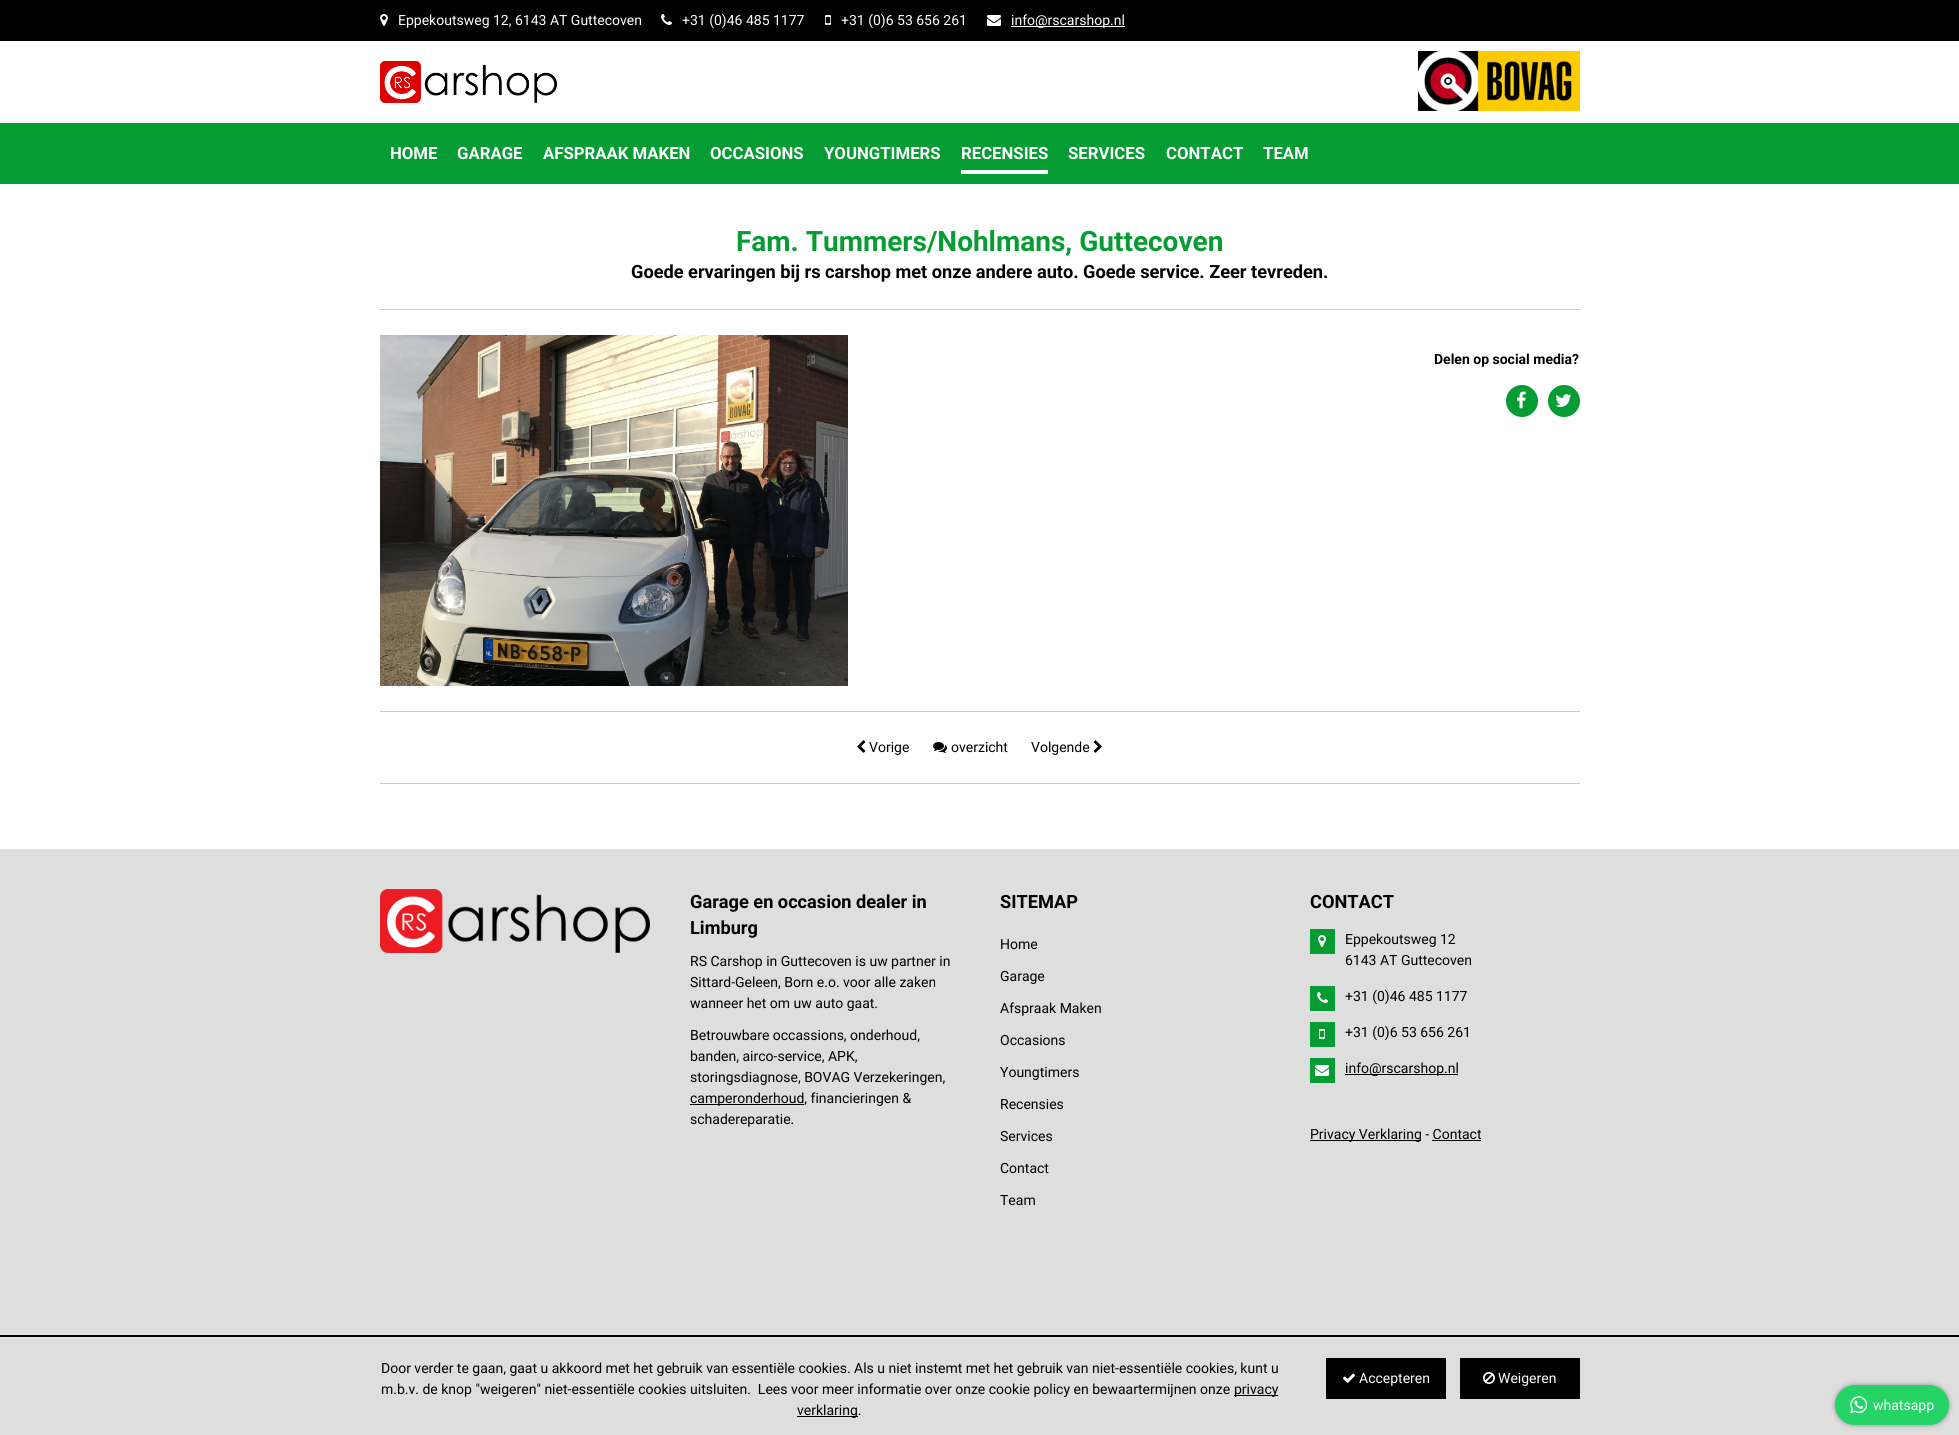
import math
import cairo

surface = cairo.ImageSurface(cairo.FORMAT_RGB24, 1959, 1435)
ctx = cairo.Context(surface)
options = cairo.FontOptions()
options.set_hint_metrics(cairo.HINT_METRICS_OFF)
options.set_hint_style(cairo.HINT_STYLE_NONE)
ctx.set_font_options(options)
ctx.set_miter_limit(4)


def round_rect(x, y, w, h, r):
    ctx.new_sub_path()
    for i, (u, v) in enumerate([(x + w - r, y + h - r), (x + r, y + h - r), (x + r, y + r), (x + w - r, y + r)]):
        ctx.arc(u, v, r, i * math.pi / 2, (i + 1) * math.pi / 2)
    ctx.close_path()


def shadow(x, y, w, h, r, blur, alpha):
    ctx.push_group_with_content(cairo.CONTENT_ALPHA)
    ctx.set_operator(cairo.OPERATOR_SOURCE)
    for i in range(15, -16, -2):
        e = blur * i / 6
        if min(w, h) + 2 * e > 0:
            ctx.set_source_rgba(0, 0, 0, alpha * math.erfc((i - 1) / 8.5) / 2)
            round_rect(x - e, y - e, w + 2 * e, h + 2 * e, max(0, min(r + e + blur * .6, min(w, h) / 2 + e)))
            ctx.fill()
    ctx.mask(ctx.pop_group())


def picture(path, x, y, w, h):
    ctx.save()
    ctx.set_source_surface(cairo.ImageSurface.create_from_png(path), x, y)
    ctx.rectangle(x, y, w, h)
    ctx.fill()
    ctx.restore()


ctx.set_source_rgb(0.871, 0.871, 0.871)
ctx.paint()
ctx.set_source_rgb(1, 1, 1)
ctx.rectangle(0, 41, 1959, 808)
ctx.fill()
ctx.set_source_rgb(0, 0, 0)
ctx.rectangle(0, 0, 1959, 41)
ctx.fill()
picture("img1.png", 380, 14, 8, 12)
ctx.select_font_face("Roboto")
ctx.set_font_size(14)
ctx.set_source_rgb(1, 1, 1)
ctx.move_to(398, 25)
ctx.show_text("Eppekoutsweg 12, 6143 AT Guttecoven")
picture("img2.png", 661, 14, 11, 11)
ctx.move_to(682, 25)
ctx.show_text("+31 (0)46 485 1177")
picture("img3.png", 825, 15, 6, 10)
ctx.move_to(841, 25)
ctx.show_text("+31 (0)6 53 656 261")
picture("img4.png", 987, 15, 14, 11)
ctx.rectangle(1011, 26, 114, 1)
ctx.fill()
ctx.move_to(1011, 25)
ctx.show_text("info@rscarshop.nl")
picture("img5.png", 380, 61, 177, 42)
picture("img6.png", 1418, 51, 162, 60)
ctx.set_source_rgb(0.024, 0.612, 0.204)
ctx.rectangle(0, 123, 1959, 61)
ctx.fill()
ctx.select_font_face("Roboto", cairo.FONT_SLANT_NORMAL, cairo.FONT_WEIGHT_BOLD)
ctx.set_font_size(16.75)
ctx.set_source_rgb(1, 1, 1)
ctx.move_to(390, 159)
ctx.show_text("HOME")
ctx.move_to(457, 159)
ctx.show_text("GARAGE")
ctx.move_to(543, 159)
ctx.show_text("AFSPRAAK MAKEN")
ctx.move_to(710, 159)
ctx.show_text("OCCASIONS")
ctx.move_to(824, 159)
ctx.show_text("YOUNGTIMERS")
ctx.move_to(961, 159)
ctx.show_text("RECENSIES")
ctx.rectangle(961, 170, 87, 4)
ctx.fill()
ctx.move_to(1068, 159)
ctx.show_text("SERVICES")
ctx.move_to(1166, 159)
ctx.show_text("CONTACT")
ctx.move_to(1263, 159)
ctx.show_text("TEAM")
ctx.set_source_rgb(0.8, 0.8, 0.8)
ctx.rectangle(380, 309, 1200, 1)
ctx.fill()
ctx.set_font_size(28)
ctx.set_source_rgb(0.024, 0.612, 0.204)
ctx.move_to(736, 251)
ctx.show_text("Fam. Tummers/Nohlmans, Guttecoven")
ctx.set_font_size(18.2)
ctx.set_source_rgb(0, 0, 0)
ctx.move_to(631, 278)
ctx.show_text("Goede ervaringen bij rs carshop met onze andere auto. Goede service. Zeer tevreden.")
ctx.set_source_rgb(0.8, 0.8, 0.8)
ctx.rectangle(380, 711, 1200, 1)
ctx.fill()
picture("img7.png", 380, 335, 468, 351)
ctx.set_font_size(14)
ctx.set_source_rgb(0, 0, 0)
ctx.move_to(1434, 364)
ctx.show_text("Delen op social media?")
ctx.set_source_rgb(0.024, 0.612, 0.204)
ctx.new_path()
ctx.arc(1522, 401, 16, 0, 2 * math.pi)
ctx.fill()
picture("img8.png", 1516, 391, 10, 18)
ctx.arc(1564, 401, 16, 0, 2 * math.pi)
ctx.fill()
picture("img9.png", 1555, 394, 17, 13)
ctx.set_source_rgb(0.8, 0.8, 0.8)
ctx.rectangle(380, 783, 1200, 1)
ctx.fill()
picture("img10.png", 857, 740, 9, 13)
ctx.select_font_face("Roboto")
ctx.set_source_rgb(0, 0, 0)
ctx.move_to(869, 752)
ctx.show_text("Vorige")
picture("img11.png", 933, 742, 14, 11)
ctx.move_to(951, 752)
ctx.show_text("overzicht")
ctx.move_to(1031, 752)
ctx.show_text("Volgende")
picture("img12.png", 1093, 740, 9, 13)
picture("img13.png", 380, 889, 270, 64)
ctx.select_font_face("Roboto", cairo.FONT_SLANT_NORMAL, cairo.FONT_WEIGHT_BOLD)
ctx.set_font_size(18.2)
ctx.move_to(690, 908)
ctx.show_text("Garage en occasion dealer in")
ctx.move_to(690, 934)
ctx.show_text("Limburg")
ctx.select_font_face("Roboto")
ctx.set_font_size(14)
ctx.move_to(690, 966)
ctx.show_text("RS Carshop in Guttecoven is uw partner in")
ctx.move_to(690, 987)
ctx.show_text("Sittard-Geleen, Born e.o. voor alle zaken")
ctx.move_to(690, 1008)
ctx.show_text("wanneer het om uw auto gaat.")
ctx.move_to(690, 1040)
ctx.show_text("Betrouwbare occassions, onderhoud,")
ctx.move_to(690, 1061)
ctx.show_text("banden, airco-service, APK,")
ctx.move_to(690, 1082)
ctx.show_text("storingsdiagnose, BOVAG Verzekeringen,")
ctx.rectangle(690, 1104, 114, 1)
ctx.fill()
ctx.move_to(690, 1103)
ctx.show_text("camperonderhoud, financieringen &")
ctx.move_to(690, 1124)
ctx.show_text("schadereparatie.")
ctx.select_font_face("Roboto", cairo.FONT_SLANT_NORMAL, cairo.FONT_WEIGHT_BOLD)
ctx.set_font_size(18.2)
ctx.move_to(1000, 908)
ctx.show_text("SITEMAP")
ctx.set_source_rgb(0.882, 0.882, 0.882)
ctx.rectangle(1000, 960, 270, 1)
ctx.fill()
ctx.select_font_face("Roboto")
ctx.set_font_size(14)
ctx.set_source_rgb(0, 0, 0)
ctx.move_to(1000, 949)
ctx.show_text("Home")
ctx.set_source_rgb(0.882, 0.882, 0.882)
ctx.rectangle(1000, 992, 270, 1)
ctx.fill()
ctx.set_source_rgb(0, 0, 0)
ctx.move_to(1000, 981)
ctx.show_text("Garage")
ctx.set_source_rgb(0.882, 0.882, 0.882)
ctx.rectangle(1000, 1024, 270, 1)
ctx.fill()
ctx.set_source_rgb(0, 0, 0)
ctx.move_to(1000, 1013)
ctx.show_text("Afspraak Maken")
ctx.set_source_rgb(0.882, 0.882, 0.882)
ctx.rectangle(1000, 1056, 270, 1)
ctx.fill()
ctx.set_source_rgb(0, 0, 0)
ctx.move_to(1000, 1045)
ctx.show_text("Occasions")
ctx.set_source_rgb(0.882, 0.882, 0.882)
ctx.rectangle(1000, 1088, 270, 1)
ctx.fill()
ctx.set_source_rgb(0, 0, 0)
ctx.move_to(1000, 1077)
ctx.show_text("Youngtimers")
ctx.set_source_rgb(0.882, 0.882, 0.882)
ctx.rectangle(1000, 1120, 270, 1)
ctx.fill()
ctx.set_source_rgb(0, 0, 0)
ctx.move_to(1000, 1109)
ctx.show_text("Recensies")
ctx.set_source_rgb(0.882, 0.882, 0.882)
ctx.rectangle(1000, 1152, 270, 1)
ctx.fill()
ctx.set_source_rgb(0, 0, 0)
ctx.move_to(1000, 1141)
ctx.show_text("Services")
ctx.set_source_rgb(0.882, 0.882, 0.882)
ctx.rectangle(1000, 1184, 270, 1)
ctx.fill()
ctx.set_source_rgb(0, 0, 0)
ctx.move_to(1000, 1173)
ctx.show_text("Contact")
ctx.set_source_rgb(0.882, 0.882, 0.882)
ctx.rectangle(1000, 1216, 270, 1)
ctx.fill()
ctx.set_source_rgb(0, 0, 0)
ctx.move_to(1000, 1205)
ctx.show_text("Team")
ctx.select_font_face("Roboto", cairo.FONT_SLANT_NORMAL, cairo.FONT_WEIGHT_BOLD)
ctx.set_font_size(18.2)
ctx.move_to(1310, 908)
ctx.show_text("CONTACT")
ctx.set_source_rgb(0.024, 0.612, 0.204)
ctx.rectangle(1310, 929, 25, 25)
ctx.fill()
picture("img14.png", 1318, 935, 8, 12)
ctx.select_font_face("Roboto")
ctx.set_font_size(14)
ctx.set_source_rgb(0, 0, 0)
ctx.move_to(1345, 944)
ctx.show_text("Eppekoutsweg 12")
ctx.move_to(1345, 965)
ctx.show_text("6143 AT Guttecoven")
ctx.set_source_rgb(0.024, 0.612, 0.204)
ctx.rectangle(1310, 986, 25, 25)
ctx.fill()
picture("img15.png", 1317, 992, 11, 11)
ctx.set_source_rgb(0, 0, 0)
ctx.move_to(1345, 1001)
ctx.show_text("+31 (0)46 485 1177")
ctx.set_source_rgb(0.024, 0.612, 0.204)
ctx.rectangle(1310, 1022, 25, 25)
ctx.fill()
picture("img16.png", 1319, 1029, 6, 10)
ctx.set_source_rgb(0, 0, 0)
ctx.move_to(1345, 1037)
ctx.show_text("+31 (0)6 53 656 261")
ctx.set_source_rgb(0.024, 0.612, 0.204)
ctx.rectangle(1310, 1058, 25, 25)
ctx.fill()
picture("img17.png", 1315, 1065, 14, 11)
ctx.set_source_rgb(0, 0, 0)
ctx.rectangle(1345, 1074, 113, 1)
ctx.fill()
ctx.move_to(1345, 1073)
ctx.show_text("info@rscarshop.nl")
ctx.rectangle(1310, 1140, 111, 1)
ctx.fill()
ctx.move_to(1310, 1139)
ctx.show_text("Privacy Verklaring - Contact")
ctx.rectangle(1432, 1140, 49, 1)
ctx.fill()
ctx.rectangle(0, 1335, 1959, 2)
ctx.fill()
ctx.move_to(381, 1373)
ctx.show_text("Door verder te gaan, gaat u akkoord met het gebruik van essentiële cookies. Als u niet instemt met het gebruik van niet-essentiële cookies, kunt u")
ctx.move_to(381, 1394)
ctx.show_text("m.b.v. de knop \"weigeren\" niet-essentiële cookies uitsluiten.  Lees voor meer informatie over onze cookie policy en bewaartermijnen onze")
ctx.rectangle(1234, 1395, 44, 1)
ctx.fill()
ctx.move_to(1234, 1394)
ctx.show_text("privacy")
ctx.rectangle(797, 1416, 61, 1)
ctx.fill()
ctx.move_to(797, 1415)
ctx.show_text("verklaring.")
ctx.rectangle(1326, 1358, 120, 41)
ctx.fill()
picture("img18.png", 1343, 1373, 12, 10)
ctx.set_source_rgb(1, 1, 1)
ctx.move_to(1359, 1383)
ctx.show_text("Accepteren")
ctx.set_source_rgb(0, 0, 0)
ctx.rectangle(1460, 1358, 120, 41)
ctx.fill()
picture("img19.png", 1483, 1372, 12, 12)
ctx.set_source_rgb(1, 1, 1)
ctx.move_to(1498, 1383)
ctx.show_text("Weigeren")
ctx.set_source_rgb(0, 0, 0)
shadow(1835, 1385, 114, 40, 20, 2.5, 0.35)
ctx.set_source_rgb(0.145, 0.827, 0.4)
round_rect(1835, 1385, 114, 40, 20)
ctx.fill()
picture("img20.png", 1850, 1396, 18, 18)
ctx.set_source_rgb(1, 1, 1)
ctx.move_to(1873, 1410)
ctx.show_text("whatsapp")
surface.write_to_png("page.png")
